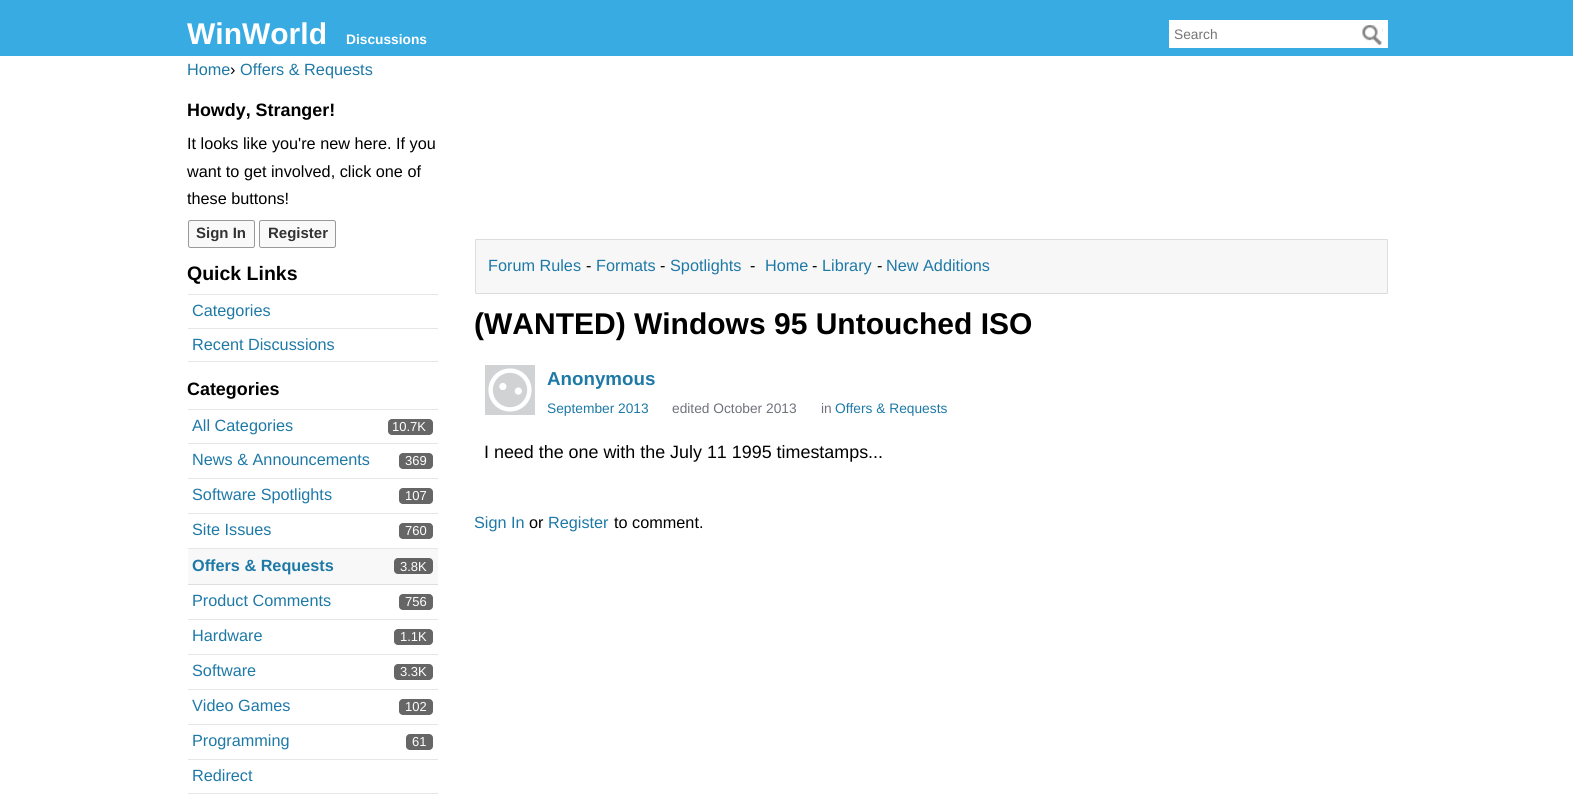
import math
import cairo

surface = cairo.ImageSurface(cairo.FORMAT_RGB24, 1573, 797)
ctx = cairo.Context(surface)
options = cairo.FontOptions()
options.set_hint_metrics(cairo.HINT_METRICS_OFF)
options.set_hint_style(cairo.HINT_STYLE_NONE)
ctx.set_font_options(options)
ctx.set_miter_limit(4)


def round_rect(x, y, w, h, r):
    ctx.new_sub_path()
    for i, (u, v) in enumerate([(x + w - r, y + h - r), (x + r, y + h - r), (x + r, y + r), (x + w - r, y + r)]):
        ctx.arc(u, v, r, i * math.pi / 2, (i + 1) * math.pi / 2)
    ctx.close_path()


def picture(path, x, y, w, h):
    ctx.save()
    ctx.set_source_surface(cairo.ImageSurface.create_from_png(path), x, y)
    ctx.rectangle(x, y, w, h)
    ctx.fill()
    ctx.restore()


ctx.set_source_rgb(1, 1, 1)
ctx.paint()
ctx.set_source_rgb(0.22, 0.671, 0.89)
ctx.rectangle(0, 0, 1573, 56)
ctx.fill()
ctx.select_font_face("Liberation Sans", cairo.FONT_SLANT_NORMAL, cairo.FONT_WEIGHT_BOLD)
ctx.set_font_size(30)
ctx.set_source_rgb(1, 1, 1)
ctx.move_to(187, 44)
ctx.show_text("WinWorld")
ctx.set_font_size(13.75)
ctx.move_to(346, 44)
ctx.show_text("Discussions")
ctx.rectangle(1169, 20, 219, 28)
ctx.fill()
ctx.select_font_face("Liberation Sans")
ctx.set_source_rgb(0.459, 0.459, 0.459)
ctx.move_to(1174, 39)
ctx.show_text("Search")
picture("img1.png", 1362, 25, 21, 20)
ctx.set_font_size(16.25)
ctx.set_source_rgb(0.118, 0.475, 0.655)
ctx.move_to(187, 75)
ctx.show_text("Home")
ctx.set_source_rgb(0, 0, 0)
ctx.move_to(230, 75)
ctx.show_text("›")
ctx.set_source_rgb(0.118, 0.475, 0.655)
ctx.move_to(240, 75)
ctx.show_text("Offers & Requests")
ctx.select_font_face("Liberation Sans", cairo.FONT_SLANT_NORMAL, cairo.FONT_WEIGHT_BOLD)
ctx.set_font_size(17.9)
ctx.set_source_rgb(0, 0, 0)
ctx.move_to(187, 116)
ctx.show_text("Howdy, Stranger!")
ctx.select_font_face("Liberation Sans")
ctx.set_font_size(16.25)
ctx.move_to(187, 149)
ctx.show_text("It looks like you're new here. If you")
ctx.move_to(187, 177)
ctx.show_text("want to get involved, click one of")
ctx.move_to(187, 204)
ctx.show_text("these buttons!")
ctx.set_source_rgb(0.973, 0.973, 0.973)
round_rect(188.5, 220.5, 66, 27, 2)
ctx.fill_preserve()
ctx.set_source_rgb(0.6, 0.6, 0.6)
ctx.set_line_width(1)
ctx.stroke()
ctx.select_font_face("Liberation Sans", cairo.FONT_SLANT_NORMAL, cairo.FONT_WEIGHT_BOLD)
ctx.set_font_size(15)
ctx.set_source_rgb(0.2, 0.2, 0.2)
ctx.move_to(196, 238)
ctx.show_text("Sign In")
ctx.set_source_rgb(0.973, 0.973, 0.973)
round_rect(259.5, 220.5, 76, 27, 2)
ctx.fill_preserve()
ctx.set_source_rgb(0.6, 0.6, 0.6)
ctx.stroke()
ctx.set_source_rgb(0.2, 0.2, 0.2)
ctx.move_to(268, 238)
ctx.show_text("Register")
ctx.set_font_size(19.5)
ctx.set_source_rgb(0, 0, 0)
ctx.move_to(187, 280)
ctx.show_text("Quick Links")
ctx.set_source_rgb(0.902, 0.902, 0.902)
ctx.rectangle(188, 294, 250, 1)
ctx.fill()
ctx.rectangle(188, 328, 250, 1)
ctx.fill()
ctx.select_font_face("Liberation Sans")
ctx.set_font_size(16.25)
ctx.set_source_rgb(0.118, 0.475, 0.655)
ctx.move_to(192, 316)
ctx.show_text("Categories")
ctx.set_source_rgb(0.902, 0.902, 0.902)
ctx.rectangle(188, 361, 250, 1)
ctx.fill()
ctx.set_source_rgb(0.118, 0.475, 0.655)
ctx.move_to(192, 350)
ctx.show_text("Recent Discussions")
ctx.select_font_face("Liberation Sans", cairo.FONT_SLANT_NORMAL, cairo.FONT_WEIGHT_BOLD)
ctx.set_font_size(17.9)
ctx.set_source_rgb(0, 0, 0)
ctx.move_to(187, 395)
ctx.show_text("Categories")
ctx.set_source_rgb(0.902, 0.902, 0.902)
ctx.rectangle(188, 409, 250, 1)
ctx.fill()
ctx.rectangle(188, 443, 250, 1)
ctx.fill()
ctx.select_font_face("Liberation Sans")
ctx.set_font_size(16.25)
ctx.set_source_rgb(0.118, 0.475, 0.655)
ctx.move_to(192, 431)
ctx.show_text("All Categories")
ctx.set_source_rgb(0.4, 0.4, 0.4)
round_rect(388, 419, 45, 16, 4)
ctx.fill()
ctx.set_font_size(13)
ctx.set_source_rgb(1, 1, 1)
ctx.move_to(392, 431)
ctx.show_text("10.7K")
ctx.set_source_rgb(0.902, 0.902, 0.902)
ctx.rectangle(188, 478, 250, 1)
ctx.fill()
ctx.set_font_size(16.25)
ctx.set_source_rgb(0.118, 0.475, 0.655)
ctx.move_to(192, 465)
ctx.show_text("News & Announcements")
ctx.set_source_rgb(0.4, 0.4, 0.4)
round_rect(399, 453, 34, 16, 4)
ctx.fill()
ctx.set_font_size(13)
ctx.set_source_rgb(1, 1, 1)
ctx.move_to(405, 465)
ctx.show_text("369")
ctx.set_source_rgb(0.902, 0.902, 0.902)
ctx.rectangle(188, 513, 250, 1)
ctx.fill()
ctx.set_font_size(16.25)
ctx.set_source_rgb(0.118, 0.475, 0.655)
ctx.move_to(192, 500)
ctx.show_text("Software Spotlights")
ctx.set_source_rgb(0.4, 0.4, 0.4)
round_rect(399, 488, 34, 16, 4)
ctx.fill()
ctx.set_font_size(13)
ctx.set_source_rgb(1, 1, 1)
ctx.move_to(405, 500)
ctx.show_text("107")
ctx.set_source_rgb(0.902, 0.902, 0.902)
ctx.rectangle(188, 548, 250, 1)
ctx.fill()
ctx.set_font_size(16.25)
ctx.set_source_rgb(0.118, 0.475, 0.655)
ctx.move_to(192, 535)
ctx.show_text("Site Issues")
ctx.set_source_rgb(0.4, 0.4, 0.4)
round_rect(399, 523, 34, 16, 4)
ctx.fill()
ctx.set_font_size(13)
ctx.set_source_rgb(1, 1, 1)
ctx.move_to(405, 535)
ctx.show_text("760")
ctx.set_source_rgb(0.969, 0.969, 0.969)
ctx.rectangle(188, 549, 250, 35)
ctx.fill()
ctx.set_source_rgb(0.871, 0.871, 0.871)
ctx.rectangle(188, 584, 250, 1)
ctx.fill()
ctx.select_font_face("Liberation Sans", cairo.FONT_SLANT_NORMAL, cairo.FONT_WEIGHT_BOLD)
ctx.set_font_size(16.25)
ctx.set_source_rgb(0.118, 0.475, 0.655)
ctx.move_to(192, 571)
ctx.show_text("Offers & Requests")
ctx.set_source_rgb(0.388, 0.388, 0.388)
round_rect(394, 558, 39, 16, 4)
ctx.fill()
ctx.select_font_face("Liberation Sans")
ctx.set_font_size(13)
ctx.set_source_rgb(1, 1, 1)
ctx.move_to(400, 571)
ctx.show_text("3.8K")
ctx.set_source_rgb(0.902, 0.902, 0.902)
ctx.rectangle(188, 619, 250, 1)
ctx.fill()
ctx.set_font_size(16.25)
ctx.set_source_rgb(0.118, 0.475, 0.655)
ctx.move_to(192, 606)
ctx.show_text("Product Comments")
ctx.set_source_rgb(0.4, 0.4, 0.4)
round_rect(399, 594, 34, 16, 4)
ctx.fill()
ctx.set_font_size(13)
ctx.set_source_rgb(1, 1, 1)
ctx.move_to(405, 606)
ctx.show_text("756")
ctx.set_source_rgb(0.902, 0.902, 0.902)
ctx.rectangle(188, 654, 250, 1)
ctx.fill()
ctx.set_font_size(16.25)
ctx.set_source_rgb(0.118, 0.475, 0.655)
ctx.move_to(192, 641)
ctx.show_text("Hardware")
ctx.set_source_rgb(0.4, 0.4, 0.4)
round_rect(394, 629, 39, 16, 4)
ctx.fill()
ctx.set_font_size(13)
ctx.set_source_rgb(1, 1, 1)
ctx.move_to(400, 641)
ctx.show_text("1.1K")
ctx.set_source_rgb(0.902, 0.902, 0.902)
ctx.rectangle(188, 689, 250, 1)
ctx.fill()
ctx.set_font_size(16.25)
ctx.set_source_rgb(0.118, 0.475, 0.655)
ctx.move_to(192, 676)
ctx.show_text("Software")
ctx.set_source_rgb(0.4, 0.4, 0.4)
round_rect(394, 664, 39, 16, 4)
ctx.fill()
ctx.set_font_size(13)
ctx.set_source_rgb(1, 1, 1)
ctx.move_to(400, 676)
ctx.show_text("3.3K")
ctx.set_source_rgb(0.902, 0.902, 0.902)
ctx.rectangle(188, 724, 250, 1)
ctx.fill()
ctx.set_font_size(16.25)
ctx.set_source_rgb(0.118, 0.475, 0.655)
ctx.move_to(192, 711)
ctx.show_text("Video Games")
ctx.set_source_rgb(0.4, 0.4, 0.4)
round_rect(399, 699, 34, 16, 4)
ctx.fill()
ctx.set_font_size(13)
ctx.set_source_rgb(1, 1, 1)
ctx.move_to(405, 711)
ctx.show_text("102")
ctx.set_source_rgb(0.902, 0.902, 0.902)
ctx.rectangle(188, 759, 250, 1)
ctx.fill()
ctx.set_font_size(16.25)
ctx.set_source_rgb(0.118, 0.475, 0.655)
ctx.move_to(192, 746)
ctx.show_text("Programming")
ctx.set_source_rgb(0.4, 0.4, 0.4)
round_rect(406, 734, 27, 16, 4)
ctx.fill()
ctx.set_font_size(13)
ctx.set_source_rgb(1, 1, 1)
ctx.move_to(412, 746)
ctx.show_text("61")
ctx.set_source_rgb(0.902, 0.902, 0.902)
ctx.rectangle(188, 793, 250, 1)
ctx.fill()
ctx.set_font_size(16.25)
ctx.set_source_rgb(0.118, 0.475, 0.655)
ctx.move_to(192, 781)
ctx.show_text("Redirect")
ctx.set_source_rgb(0.965, 0.965, 0.965)
round_rect(475.5, 239.5, 912, 54, 0.5)
ctx.fill_preserve()
ctx.set_source_rgb(0.867, 0.867, 0.867)
ctx.stroke()
ctx.set_source_rgb(0.118, 0.475, 0.655)
ctx.move_to(488, 271)
ctx.show_text("Forum Rules")
ctx.set_source_rgb(0, 0, 0)
ctx.move_to(586, 271)
ctx.show_text("-")
ctx.set_source_rgb(0.118, 0.475, 0.655)
ctx.move_to(596, 271)
ctx.show_text("Formats")
ctx.set_source_rgb(0, 0, 0)
ctx.move_to(660, 271)
ctx.show_text("-")
ctx.set_source_rgb(0.118, 0.475, 0.655)
ctx.move_to(670, 271)
ctx.show_text("Spotlights")
ctx.set_source_rgb(0, 0, 0)
ctx.move_to(750, 271)
ctx.show_text("-")
ctx.set_source_rgb(0.118, 0.475, 0.655)
ctx.move_to(765, 271)
ctx.show_text("Home")
ctx.set_source_rgb(0, 0, 0)
ctx.move_to(812, 271)
ctx.show_text("-")
ctx.set_source_rgb(0.118, 0.475, 0.655)
ctx.move_to(822, 271)
ctx.show_text("Library")
ctx.set_source_rgb(0, 0, 0)
ctx.move_to(877, 271)
ctx.show_text("-")
ctx.set_source_rgb(0.118, 0.475, 0.655)
ctx.move_to(886, 271)
ctx.show_text("New Additions")
ctx.select_font_face("Liberation Sans", cairo.FONT_SLANT_NORMAL, cairo.FONT_WEIGHT_BOLD)
ctx.set_font_size(30)
ctx.set_source_rgb(0, 0, 0)
ctx.move_to(474, 334)
ctx.show_text("(WANTED) Windows 95 Untouched ISO")
picture("img2.png", 485, 365, 50, 50)
ctx.set_font_size(18.75)
ctx.set_source_rgb(0.118, 0.475, 0.655)
ctx.move_to(547, 385)
ctx.show_text("Anonymous")
ctx.select_font_face("Liberation Sans")
ctx.set_font_size(13.75)
ctx.move_to(547, 413)
ctx.show_text("September 2013")
ctx.set_source_rgb(0.439, 0.447, 0.486)
ctx.move_to(672, 413)
ctx.show_text("edited October 2013")
ctx.move_to(821, 413)
ctx.show_text("in")
ctx.set_source_rgb(0.118, 0.475, 0.655)
ctx.move_to(835, 413)
ctx.show_text("Offers & Requests")
ctx.set_font_size(17.9)
ctx.set_source_rgb(0, 0, 0)
ctx.move_to(484, 458)
ctx.show_text("I need the one with the July 11 1995 timestamps...")
ctx.set_font_size(16.25)
ctx.set_source_rgb(0.118, 0.475, 0.655)
ctx.move_to(474, 528)
ctx.show_text("Sign In")
ctx.set_source_rgb(0, 0, 0)
ctx.move_to(529, 528)
ctx.show_text("or")
ctx.set_source_rgb(0.118, 0.475, 0.655)
ctx.move_to(548, 528)
ctx.show_text("Register")
ctx.set_source_rgb(0, 0, 0)
ctx.move_to(614, 528)
ctx.show_text("to comment.")
surface.write_to_png("page.png")
